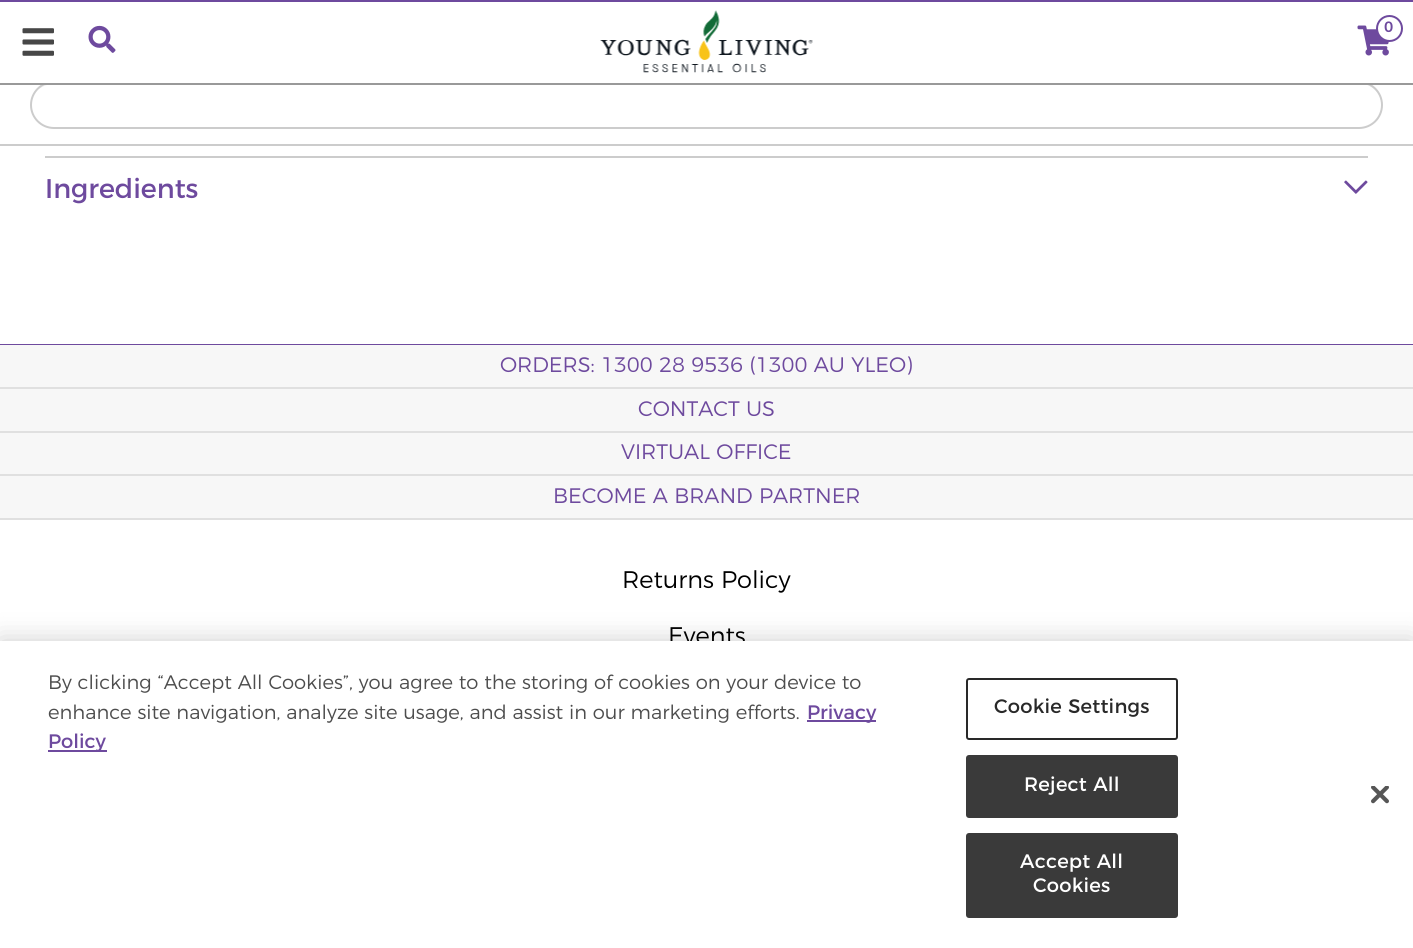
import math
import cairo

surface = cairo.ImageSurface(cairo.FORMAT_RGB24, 1413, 948)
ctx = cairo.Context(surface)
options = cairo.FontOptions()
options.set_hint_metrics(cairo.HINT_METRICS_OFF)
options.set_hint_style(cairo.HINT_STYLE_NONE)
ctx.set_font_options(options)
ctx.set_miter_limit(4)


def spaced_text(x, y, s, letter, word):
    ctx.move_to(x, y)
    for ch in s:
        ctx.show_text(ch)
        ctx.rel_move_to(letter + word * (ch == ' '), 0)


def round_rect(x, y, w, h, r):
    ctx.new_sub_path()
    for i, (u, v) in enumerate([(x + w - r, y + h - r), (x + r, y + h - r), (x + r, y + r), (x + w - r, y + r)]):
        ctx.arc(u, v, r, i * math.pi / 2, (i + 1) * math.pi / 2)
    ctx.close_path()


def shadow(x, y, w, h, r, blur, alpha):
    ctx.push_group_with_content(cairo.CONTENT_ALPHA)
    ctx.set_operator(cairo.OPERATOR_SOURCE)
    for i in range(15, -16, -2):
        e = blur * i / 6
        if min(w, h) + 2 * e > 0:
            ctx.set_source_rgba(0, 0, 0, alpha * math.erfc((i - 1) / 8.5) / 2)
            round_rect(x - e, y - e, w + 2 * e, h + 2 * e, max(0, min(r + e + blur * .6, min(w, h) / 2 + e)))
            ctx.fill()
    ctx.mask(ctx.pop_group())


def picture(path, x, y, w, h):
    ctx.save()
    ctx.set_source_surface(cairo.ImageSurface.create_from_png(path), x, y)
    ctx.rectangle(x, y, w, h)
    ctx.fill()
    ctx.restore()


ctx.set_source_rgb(1, 1, 1)
ctx.paint()
ctx.set_source_rgb(0.922, 0.922, 0.922)
ctx.new_path()
ctx.move_to(54, 84)
ctx.line_to(1364, 84)
ctx.curve_to(1380, 88, 1385, 104, 1380, 115)
ctx.curve_to(1386, 103, 1378, 86, 1364, 83)
ctx.line_to(1360, 83)
ctx.line_to(54, 83)
ctx.curve_to(49, 83, 43, 85, 39, 89)
ctx.curve_to(43, 86, 48, 84, 54, 84)
ctx.close_path()
ctx.fill()
round_rect(31, 82, 1351, 46, 23)
ctx.set_source_rgb(0.8, 0.8, 0.8)
ctx.stroke()
ctx.set_source_rgb(1, 1, 1)
ctx.rectangle(44, 81, 1325, 2)
ctx.fill()
ctx.set_source_rgb(0.431, 0.29, 0.62)
ctx.rectangle(0, 0, 1413, 2)
ctx.fill()
ctx.set_source_rgb(0.6, 0.6, 0.6)
ctx.rectangle(0, 83, 1413, 2)
ctx.fill()
picture("img1.png", 22, 28, 32, 28)
picture("img2.png", 88, 25, 28, 28)
picture("img3.png", 600, 10, 213, 63)
picture("img4.png", 1357, 25, 32, 31)
ctx.set_source_rgb(1, 1, 1)
ctx.arc(1389.5, 28.5, 12.5, 0, 2 * math.pi)
ctx.fill_preserve()
ctx.set_source_rgb(0.431, 0.29, 0.62)
ctx.stroke()
ctx.select_font_face("Montserrat Medium")
ctx.set_font_size(15)
ctx.move_to(1384, 32)
ctx.show_text("0")
ctx.set_source_rgb(0.8, 0.8, 0.8)
ctx.rectangle(0, 144, 1413, 2)
ctx.fill()
ctx.rectangle(45, 156, 1323, 2)
ctx.fill()
ctx.select_font_face("Montserrat")
ctx.set_font_size(27)
ctx.set_source_rgb(0.431, 0.29, 0.62)
ctx.move_to(45, 198)
ctx.show_text("Ingredients")
picture("img5.png", 1344, 180, 24, 14)
ctx.rectangle(0, 344, 1413, 1)
ctx.fill()
ctx.set_source_rgb(0.965, 0.965, 0.965)
ctx.rectangle(0, 345, 1413, 173)
ctx.fill()
ctx.set_source_rgb(0.878, 0.878, 0.878)
ctx.rectangle(0, 387, 1413, 2)
ctx.fill()
ctx.select_font_face("Montserrat Light")
ctx.set_font_size(21)
ctx.set_source_rgb(0.431, 0.29, 0.62)
ctx.move_to(500, 372)
ctx.show_text("ORDERS: 1300 28 9536 (1300 AU YLEO)")
ctx.set_source_rgb(0.878, 0.878, 0.878)
ctx.rectangle(0, 431, 1413, 2)
ctx.fill()
ctx.set_source_rgb(0.431, 0.29, 0.62)
ctx.move_to(638, 416)
ctx.show_text("CONTACT US")
ctx.set_source_rgb(0.878, 0.878, 0.878)
ctx.rectangle(0, 474, 1413, 2)
ctx.fill()
ctx.set_source_rgb(0.431, 0.29, 0.62)
ctx.move_to(621, 459)
ctx.show_text("VIRTUAL OFFICE")
ctx.set_source_rgb(0.878, 0.878, 0.878)
ctx.rectangle(0, 518, 1413, 2)
ctx.fill()
ctx.set_source_rgb(0.431, 0.29, 0.62)
ctx.move_to(553, 503)
ctx.show_text("BECOME A BRAND PARTNER")
ctx.set_font_size(24)
ctx.set_source_rgb(0, 0, 0)
ctx.move_to(622, 588)
ctx.show_text("Returns Policy")
ctx.move_to(668, 644)
ctx.show_text("Events")
ctx.set_source_rgb(0, 0, 0)
shadow(0, 641, 1413, 307, 0, 13.5, 0.2)
ctx.set_source_rgb(1, 1, 1)
ctx.rectangle(0, 641, 1413, 307)
ctx.fill()
ctx.set_font_size(19.5)
ctx.set_source_rgb(0.302, 0.302, 0.302)
ctx.move_to(48, 689)
ctx.show_text("By clicking “Accept All Cookies”, you agree to the storing of cookies on your device to")
ctx.move_to(48, 719)
ctx.show_text("enhance site navigation, analyze site usage, and assist in our marketing efforts.")
ctx.set_source_rgb(0.431, 0.29, 0.62)
ctx.rectangle(807, 720, 69, 2)
ctx.fill()
ctx.select_font_face("Montserrat")
ctx.move_to(807, 719)
ctx.show_text("Privacy")
ctx.rectangle(48, 750, 59, 2)
ctx.fill()
ctx.move_to(48, 748)
ctx.show_text("Policy")
round_rect(967, 679, 210, 60, 2)
ctx.set_source_rgb(0.161, 0.161, 0.161)
ctx.stroke()
spaced_text(994, 713, "Cookie Settings", 0.25, 0)
ctx.set_source_rgb(0.227, 0.227, 0.227)
round_rect(967, 756, 210, 61, 2)
ctx.fill_preserve()
ctx.stroke()
ctx.set_source_rgb(1, 1, 1)
spaced_text(1024, 791, "Reject All", 0.25, 0)
ctx.set_source_rgb(0.227, 0.227, 0.227)
round_rect(967, 834, 210, 83, 2)
ctx.fill_preserve()
ctx.stroke()
ctx.set_source_rgb(1, 1, 1)
spaced_text(1020, 868, "Accept All", 0.25, 0)
spaced_text(1033, 892, "Cookies", 0.25, 0)
picture("img6.png", 1371, 786, 18, 18)
surface.write_to_png("page.png")
